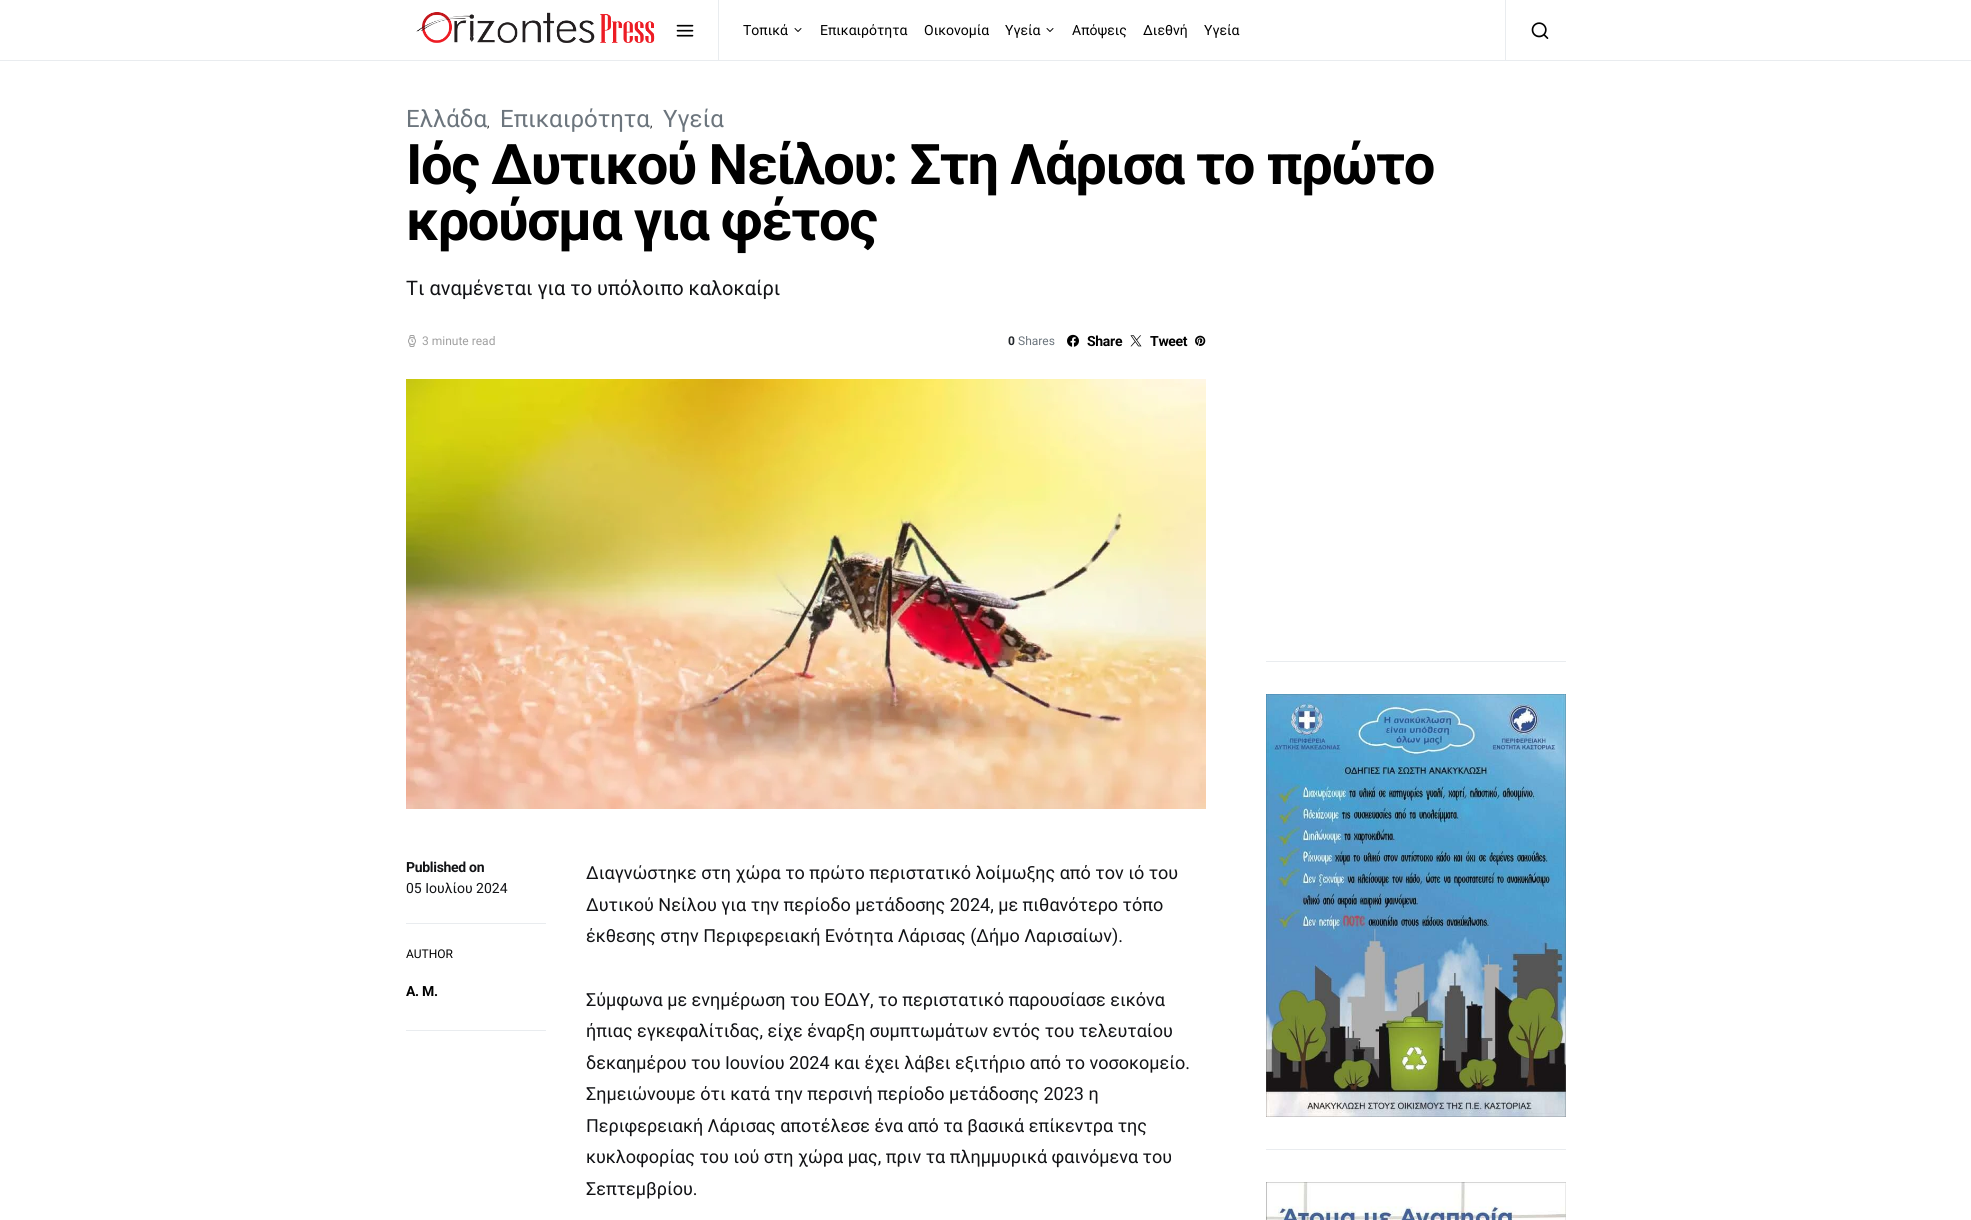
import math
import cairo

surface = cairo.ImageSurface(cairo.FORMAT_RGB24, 1971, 1220)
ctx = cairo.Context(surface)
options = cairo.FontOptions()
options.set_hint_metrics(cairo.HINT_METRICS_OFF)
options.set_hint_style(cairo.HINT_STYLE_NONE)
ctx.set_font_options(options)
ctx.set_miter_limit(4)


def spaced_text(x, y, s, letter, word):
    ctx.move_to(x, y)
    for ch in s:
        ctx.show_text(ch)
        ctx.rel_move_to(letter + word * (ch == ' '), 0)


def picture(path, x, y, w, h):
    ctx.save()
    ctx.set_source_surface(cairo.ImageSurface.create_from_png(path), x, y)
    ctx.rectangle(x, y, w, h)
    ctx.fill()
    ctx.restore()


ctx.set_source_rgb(1, 1, 1)
ctx.paint()
ctx.set_source_rgb(0.914, 0.925, 0.937)
ctx.rectangle(0, 60, 1971, 1)
ctx.fill()
picture("img1.png", 416, 12, 239, 31)
picture("img2.png", 676, 24, 18, 13)
ctx.rectangle(718, 0, 1, 60)
ctx.fill()
ctx.select_font_face("Roboto")
ctx.set_font_size(14)
ctx.set_source_rgb(0, 0, 0)
ctx.move_to(743, 35)
ctx.show_text("Τοπικά")
picture("img3.png", 794, 28, 8, 4)
ctx.move_to(820, 35)
ctx.show_text("Επικαιρότητα")
ctx.move_to(924, 35)
ctx.show_text("Οικονομία")
ctx.move_to(1005, 35)
ctx.show_text("Υγεία")
picture("img3.png", 1046, 28, 8, 4)
ctx.move_to(1072, 35)
ctx.show_text("Απόψεις")
ctx.move_to(1143, 35)
ctx.show_text("Διεθνή")
ctx.move_to(1204, 35)
ctx.show_text("Υγεία")
ctx.set_source_rgb(0.914, 0.925, 0.937)
ctx.rectangle(1505, 0, 1, 60)
ctx.fill()
picture("img4.png", 1531, 22, 18, 17)
ctx.set_font_size(24)
ctx.set_source_rgb(0.424, 0.459, 0.49)
ctx.move_to(406, 127)
ctx.show_text("Ελλάδα")
ctx.set_font_size(12)
ctx.set_source_rgb(0.071, 0.078, 0.086)
ctx.move_to(487, 127)
ctx.show_text(",")
ctx.set_font_size(24)
ctx.set_source_rgb(0.424, 0.459, 0.49)
ctx.move_to(500, 127)
ctx.show_text("Επικαιρότητα")
ctx.set_font_size(12)
ctx.set_source_rgb(0.071, 0.078, 0.086)
ctx.move_to(650, 127)
ctx.show_text(",")
ctx.set_font_size(24)
ctx.set_source_rgb(0.424, 0.459, 0.49)
ctx.move_to(663, 127)
ctx.show_text("Υγεία")
ctx.select_font_face("Roboto", cairo.FONT_SLANT_NORMAL, cairo.FONT_WEIGHT_BOLD)
ctx.set_font_size(56)
ctx.set_source_rgb(0, 0, 0)
spaced_text(406, 184, "Ιός Δυτικού Νείλου: Στη Λάρισα το πρώτο", -1.4, 0)
spaced_text(406, 240, "κρούσμα για φέτος", -1.4, 0)
ctx.select_font_face("Roboto")
ctx.set_font_size(20)
ctx.set_source_rgb(0.071, 0.078, 0.086)
ctx.move_to(406, 295)
ctx.show_text("Τι αναμένεται για το υπόλοιπο καλοκαίρι")
picture("img5.png", 408, 335, 8, 12)
ctx.set_font_size(12)
ctx.set_source_rgb(0.627, 0.627, 0.627)
ctx.move_to(422, 345)
ctx.show_text("3 minute read")
ctx.select_font_face("Roboto", cairo.FONT_SLANT_NORMAL, cairo.FONT_WEIGHT_BOLD)
ctx.set_source_rgb(0.129, 0.145, 0.161)
ctx.move_to(1008, 345)
ctx.show_text("0")
ctx.select_font_face("Roboto")
ctx.set_source_rgb(0.424, 0.459, 0.49)
ctx.move_to(1018, 345)
ctx.show_text("Shares")
picture("img6.png", 1067, 334, 12, 13)
ctx.select_font_face("Roboto", cairo.FONT_SLANT_NORMAL, cairo.FONT_WEIGHT_BOLD)
ctx.set_font_size(14)
ctx.set_source_rgb(0, 0, 0)
spaced_text(1087, 346, "Share", -0.3, 0)
picture("img7.png", 1130, 335, 12, 12)
spaced_text(1150, 346, "Tweet", -0.3, 0)
picture("img8.png", 1195, 335, 11, 11)
picture("img9.png", 406, 379, 800, 430)
ctx.set_source_rgb(0.914, 0.925, 0.937)
ctx.rectangle(406, 923, 140, 1)
ctx.fill()
ctx.set_source_rgb(0.071, 0.078, 0.086)
spaced_text(406, 872, "Published on", -0.3, 0)
ctx.select_font_face("Roboto")
ctx.move_to(406, 893)
ctx.show_text("05 Ιουλίου 2024")
ctx.set_source_rgb(0.914, 0.925, 0.937)
ctx.rectangle(406, 1030, 140, 1)
ctx.fill()
ctx.set_font_size(12)
ctx.set_source_rgb(0, 0, 0)
ctx.move_to(406, 958)
ctx.show_text("AUTHOR")
ctx.select_font_face("Roboto", cairo.FONT_SLANT_NORMAL, cairo.FONT_WEIGHT_BOLD)
ctx.set_font_size(14)
spaced_text(406, 996, "Α. Μ.", -0.3, 0)
ctx.select_font_face("Roboto")
ctx.set_font_size(18)
ctx.set_source_rgb(0.071, 0.078, 0.086)
ctx.move_to(586, 879)
ctx.show_text("Διαγνώστηκε στη χώρα το πρώτο περιστατικό λοίμωξης από τον ιό του")
ctx.move_to(586, 911)
ctx.show_text("Δυτικού Νείλου για την περίοδο μετάδοσης 2024, με πιθανότερο τόπο")
ctx.move_to(586, 942)
ctx.show_text("έκθεσης στην Περιφερειακή Ενότητα Λάρισας (Δήμο Λαρισαίων).")
ctx.move_to(586, 1006)
ctx.show_text("Σύμφωνα με ενημέρωση του ΕΟΔΥ, το περιστατικό παρουσίασε εικόνα")
ctx.move_to(586, 1037)
ctx.show_text("ήπιας εγκεφαλίτιδας, είχε έναρξη συμπτωμάτων εντός του τελευταίου")
ctx.move_to(586, 1069)
ctx.show_text("δεκαημέρου του Ιουνίου 2024 και έχει λάβει εξιτήριο από το νοσοκομείο.")
ctx.move_to(586, 1100)
ctx.show_text("Σημειώνουμε ότι κατά την περσινή περίοδο μετάδοσης 2023 η")
ctx.move_to(586, 1132)
ctx.show_text("Περιφερειακή Λάρισας αποτέλεσε ένα από τα βασικά επίκεντρα της")
ctx.move_to(586, 1163)
ctx.show_text("κυκλοφορίας του ιού στη χώρα μας, πριν τα πλημμυρικά φαινόμενα του")
ctx.move_to(586, 1195)
ctx.show_text("Σεπτεμβρίου.")
ctx.set_source_rgb(0.914, 0.925, 0.937)
ctx.rectangle(1266, 661, 300, 1)
ctx.fill()
ctx.rectangle(1266, 1149, 300, 1)
ctx.fill()
picture("img10.png", 1266, 694, 300, 423)
picture("img11.png", 1266, 1182, 300, 38)
surface.write_to_png("page.png")
